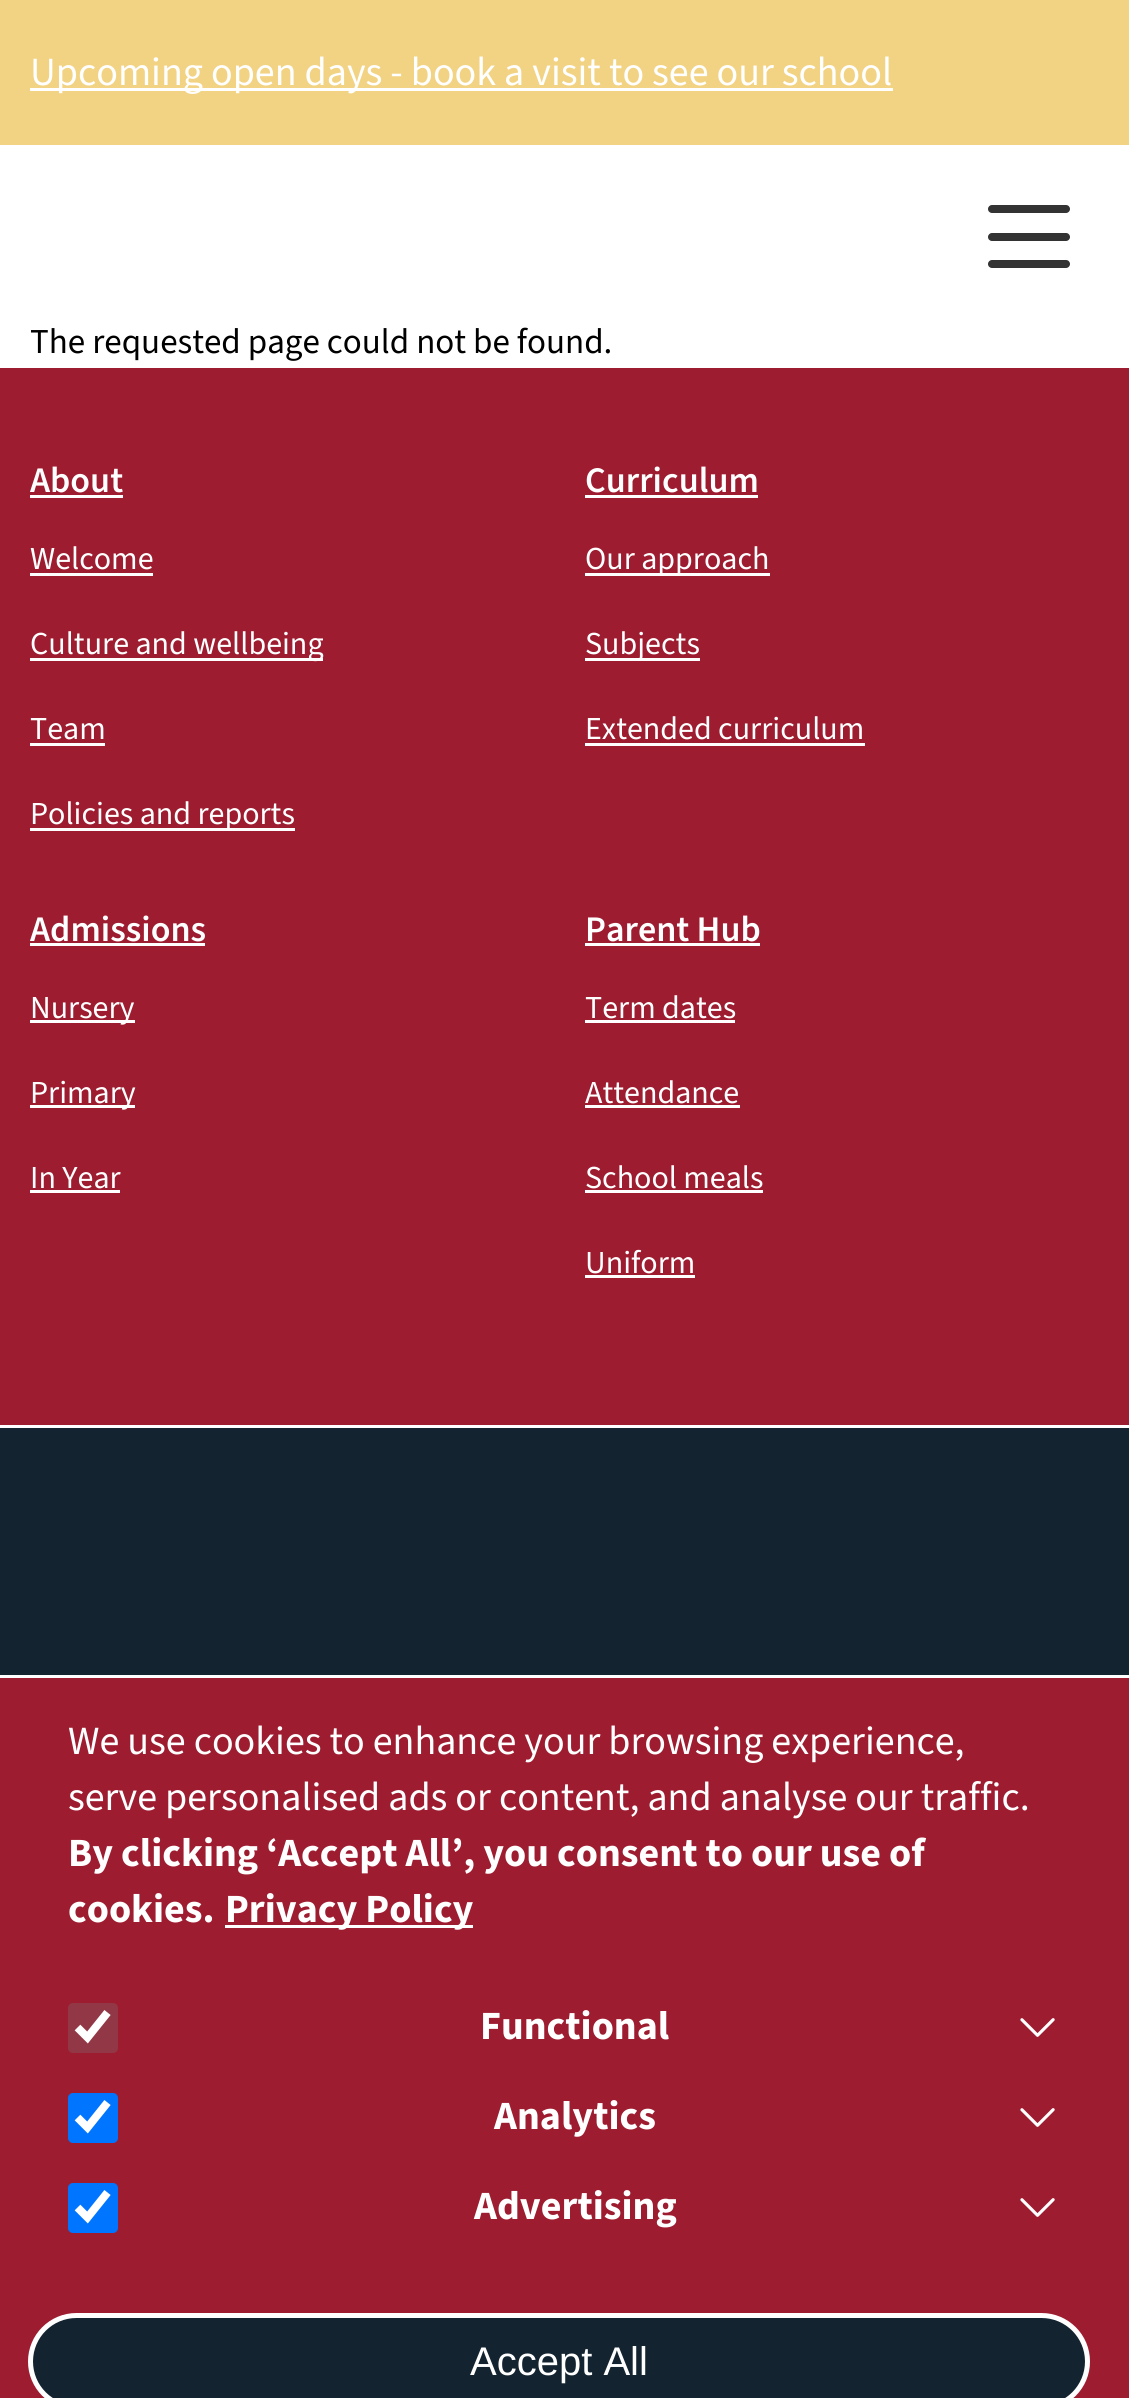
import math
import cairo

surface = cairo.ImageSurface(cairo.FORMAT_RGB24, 1129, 2398)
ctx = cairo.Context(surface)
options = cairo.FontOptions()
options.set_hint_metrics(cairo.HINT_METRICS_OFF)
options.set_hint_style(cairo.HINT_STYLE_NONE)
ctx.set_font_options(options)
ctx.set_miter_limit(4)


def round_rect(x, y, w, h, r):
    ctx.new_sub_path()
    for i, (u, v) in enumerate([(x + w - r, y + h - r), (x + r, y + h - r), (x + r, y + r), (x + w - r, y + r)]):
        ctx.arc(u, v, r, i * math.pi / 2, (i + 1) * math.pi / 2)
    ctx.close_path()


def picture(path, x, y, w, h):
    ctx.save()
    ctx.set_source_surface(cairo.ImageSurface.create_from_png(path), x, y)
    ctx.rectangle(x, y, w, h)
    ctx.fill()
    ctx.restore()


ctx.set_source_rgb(1, 1, 1)
ctx.paint()
ctx.set_source_rgb(0.949, 0.827, 0.514)
ctx.rectangle(0, 0, 1129, 145)
ctx.fill()
ctx.set_source_rgb(1, 1, 1)
ctx.rectangle(30, 88, 863, 3)
ctx.fill()
ctx.select_font_face("Source Sans 3")
ctx.set_font_size(40)
ctx.move_to(30, 85)
ctx.show_text("Upcoming open days - book a visit to see our school")
ctx.set_source_rgb(0.2, 0.2, 0.2)
round_rect(988, 205, 82, 8, 4)
ctx.fill()
round_rect(988, 233, 82, 8, 4)
ctx.fill()
round_rect(988, 260, 82, 8, 4)
ctx.fill()
ctx.set_font_size(35)
ctx.set_source_rgb(0, 0, 0)
ctx.move_to(30, 353)
ctx.show_text("The requested page could not be found.")
ctx.set_source_rgb(0.62, 0.11, 0.188)
ctx.rectangle(0, 368, 1129, 1057)
ctx.fill()
ctx.select_font_face("Source Sans 3 SemiBold")
ctx.set_font_size(36)
ctx.set_source_rgb(1, 1, 1)
ctx.move_to(30, 492)
ctx.show_text("About")
ctx.rectangle(30, 495, 93, 3)
ctx.fill()
ctx.select_font_face("Source Sans 3")
ctx.set_font_size(32)
ctx.move_to(30, 569)
ctx.show_text("Welcome")
ctx.rectangle(30, 573, 123, 3)
ctx.fill()
ctx.rectangle(30, 658, 293, 3)
ctx.fill()
ctx.move_to(30, 654)
ctx.show_text("Culture and wellbeing")
ctx.move_to(30, 739)
ctx.show_text("Team")
ctx.rectangle(30, 743, 75, 3)
ctx.fill()
ctx.rectangle(30, 828, 265, 3)
ctx.fill()
ctx.move_to(30, 824)
ctx.show_text("Policies and reports")
ctx.select_font_face("Source Sans 3 SemiBold")
ctx.set_font_size(36)
ctx.move_to(585, 492)
ctx.show_text("Curriculum")
ctx.rectangle(585, 495, 173, 3)
ctx.fill()
ctx.rectangle(585, 573, 185, 3)
ctx.fill()
ctx.select_font_face("Source Sans 3")
ctx.set_font_size(32)
ctx.move_to(585, 569)
ctx.show_text("Our approach")
ctx.rectangle(585, 658, 115, 3)
ctx.fill()
ctx.move_to(585, 654)
ctx.show_text("Subjects")
ctx.move_to(585, 739)
ctx.show_text("Extended curriculum")
ctx.rectangle(585, 743, 280, 3)
ctx.fill()
ctx.select_font_face("Source Sans 3 SemiBold")
ctx.set_font_size(36)
ctx.move_to(30, 941)
ctx.show_text("Admissions")
ctx.rectangle(30, 943, 175, 3)
ctx.fill()
ctx.rectangle(30, 1020, 105, 3)
ctx.fill()
ctx.select_font_face("Source Sans 3")
ctx.set_font_size(32)
ctx.move_to(30, 1018)
ctx.show_text("Nursery")
ctx.rectangle(30, 1105, 105, 3)
ctx.fill()
ctx.move_to(30, 1103)
ctx.show_text("Primary")
ctx.move_to(30, 1188)
ctx.show_text("In Year")
ctx.rectangle(30, 1190, 90, 3)
ctx.fill()
ctx.select_font_face("Source Sans 3 SemiBold")
ctx.set_font_size(36)
ctx.move_to(585, 941)
ctx.show_text("Parent Hub")
ctx.rectangle(585, 943, 175, 3)
ctx.fill()
ctx.select_font_face("Source Sans 3")
ctx.set_font_size(32)
ctx.move_to(585, 1018)
ctx.show_text("Term dates")
ctx.rectangle(585, 1020, 150, 3)
ctx.fill()
ctx.move_to(585, 1103)
ctx.show_text("Attendance")
ctx.rectangle(585, 1105, 155, 3)
ctx.fill()
ctx.move_to(585, 1188)
ctx.show_text("School meals")
ctx.rectangle(585, 1190, 178, 3)
ctx.fill()
ctx.move_to(585, 1273)
ctx.show_text("Uniform")
ctx.rectangle(585, 1275, 110, 3)
ctx.fill()
ctx.set_source_rgb(0.075, 0.141, 0.188)
ctx.rectangle(0, 1428, 1129, 247)
ctx.fill()
ctx.set_source_rgb(0.62, 0.11, 0.188)
ctx.rectangle(0, 1678, 1129, 720)
ctx.fill()
ctx.set_font_size(40)
ctx.set_source_rgb(1, 1, 1)
ctx.move_to(68, 1754)
ctx.show_text("We use cookies to enhance your browsing experience,")
ctx.move_to(68, 1810)
ctx.show_text("serve personalised ads or content, and analyse our traffic.")
ctx.select_font_face("Source Sans 3", cairo.FONT_SLANT_NORMAL, cairo.FONT_WEIGHT_BOLD)
ctx.move_to(68, 1866)
ctx.show_text("By clicking ‘Accept All’, you consent to our use of")
ctx.move_to(68, 1922)
ctx.show_text("cookies.")
ctx.rectangle(225, 1925, 248, 3)
ctx.fill()
ctx.move_to(225, 1922)
ctx.show_text("Privacy Policy")
ctx.set_source_rgb(0.573, 0.216, 0.271)
round_rect(68, 2003, 50, 50, 5)
ctx.fill()
ctx.new_path()
ctx.move_to(77.5, 2027.5)
ctx.line_to(87.5, 2037.5)
ctx.line_to(107.5, 2012.5)
ctx.set_source_rgb(1, 1, 1)
ctx.set_line_width(8)
ctx.stroke()
ctx.move_to(480, 2039)
ctx.show_text("Functional")
picture("img1.png", 1020, 2018, 35, 19)
ctx.set_source_rgb(0, 0.459, 1)
round_rect(68, 2093, 50, 50, 5)
ctx.fill()
ctx.new_path()
ctx.move_to(77.5, 2117.5)
ctx.line_to(87.5, 2127.5)
ctx.line_to(107.5, 2102.5)
ctx.set_source_rgb(1, 1, 1)
ctx.stroke()
ctx.move_to(494, 2129)
ctx.show_text("Analytics")
picture("img1.png", 1020, 2108, 35, 19)
ctx.set_source_rgb(0, 0.459, 1)
round_rect(68, 2183, 50, 50, 5)
ctx.fill()
ctx.new_path()
ctx.move_to(77.5, 2207.5)
ctx.line_to(87.5, 2217.5)
ctx.line_to(107.5, 2192.5)
ctx.set_source_rgb(1, 1, 1)
ctx.stroke()
ctx.move_to(474, 2219)
ctx.show_text("Advertising")
picture("img1.png", 1020, 2198, 35, 19)
ctx.set_source_rgb(0.075, 0.141, 0.188)
round_rect(30.5, 2315.5, 1057, 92, 46)
ctx.fill_preserve()
ctx.set_source_rgb(1, 1, 1)
ctx.set_line_width(5)
ctx.stroke()
ctx.select_font_face("Liberation Sans")
ctx.move_to(470, 2375)
ctx.show_text("Accept All")
surface.write_to_png("page.png")
